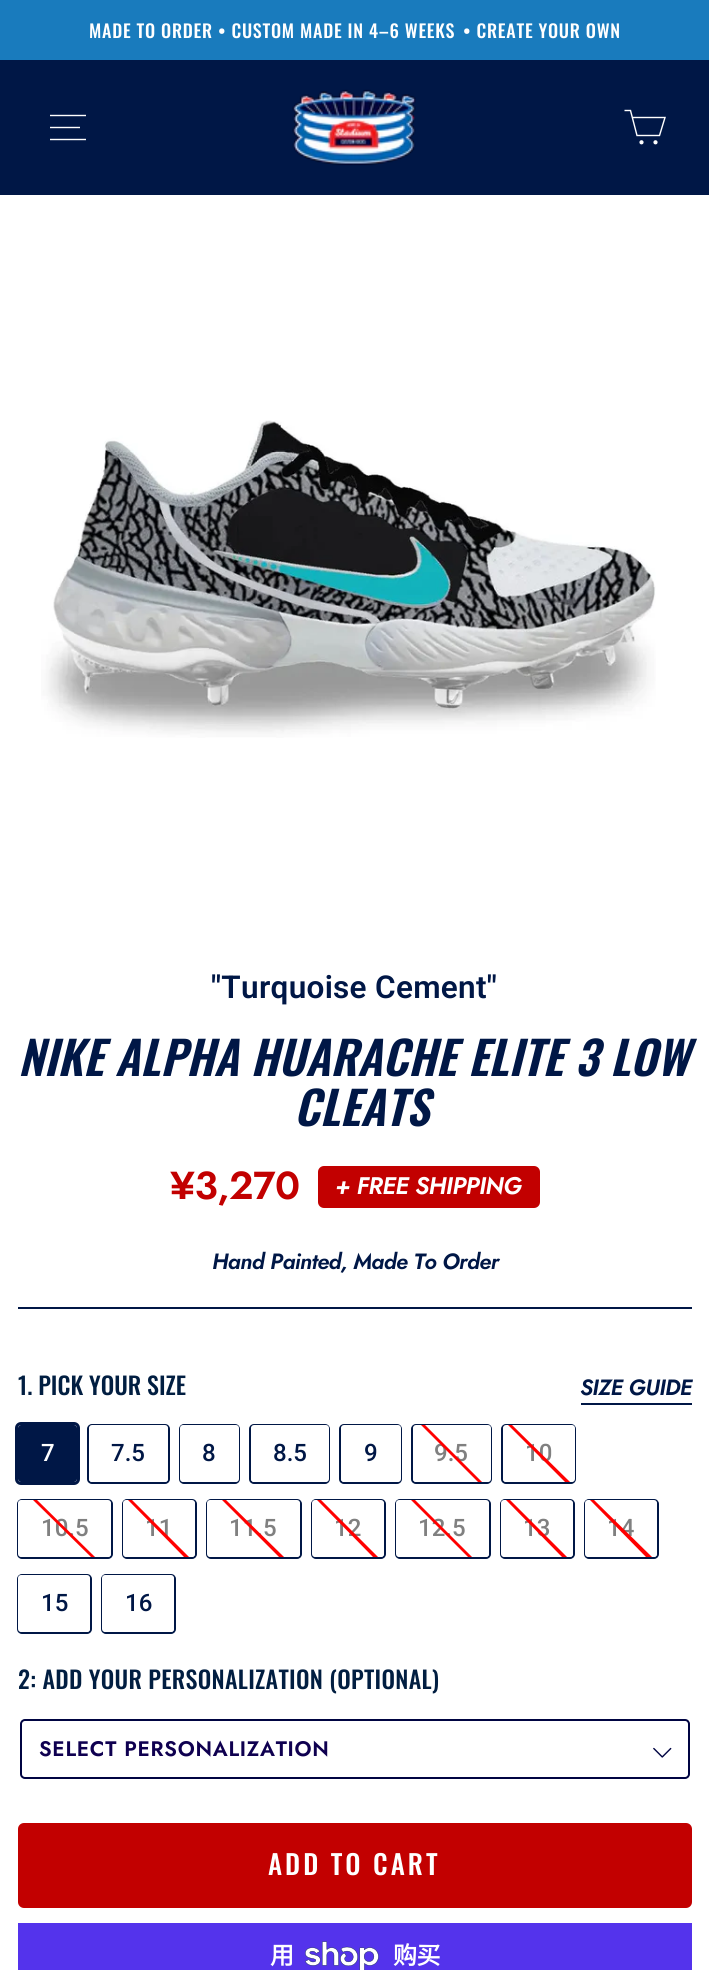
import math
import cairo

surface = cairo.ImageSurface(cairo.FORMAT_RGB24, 709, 1970)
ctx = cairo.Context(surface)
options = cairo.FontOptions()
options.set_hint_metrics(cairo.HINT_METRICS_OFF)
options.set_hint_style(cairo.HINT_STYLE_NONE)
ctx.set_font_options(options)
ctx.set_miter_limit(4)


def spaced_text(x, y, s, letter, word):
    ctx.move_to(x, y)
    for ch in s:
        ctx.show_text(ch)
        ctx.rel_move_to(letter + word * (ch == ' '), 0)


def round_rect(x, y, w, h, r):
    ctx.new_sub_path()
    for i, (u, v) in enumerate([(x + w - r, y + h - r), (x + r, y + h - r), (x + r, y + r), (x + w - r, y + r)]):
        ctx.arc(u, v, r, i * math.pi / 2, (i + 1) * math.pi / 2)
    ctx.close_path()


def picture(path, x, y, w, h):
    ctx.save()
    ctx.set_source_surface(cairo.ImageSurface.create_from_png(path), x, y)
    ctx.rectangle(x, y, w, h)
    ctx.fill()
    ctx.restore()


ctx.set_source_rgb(1, 1, 1)
ctx.paint()
ctx.set_source_rgb(0.098, 0.482, 0.741)
ctx.rectangle(0, 0, 709, 60)
ctx.fill()
ctx.select_font_face("Oswald Medium")
ctx.set_font_size(18)
ctx.set_source_rgb(1, 1, 1)
spaced_text(89, 38, "MADE TO ORDER • CUSTOM MADE IN 4–6 WEEKS", 0.75, 0)
spaced_text(463, 38, "• CREATE YOUR OWN", 0.75, 0)
ctx.set_source_rgb(0, 0.09, 0.275)
ctx.rectangle(0, 60, 709, 135)
ctx.fill()
ctx.new_path()
ctx.move_to(50, 115.5)
ctx.line_to(86, 115.5)
ctx.move_to(50, 127.5)
ctx.line_to(80, 127.5)
ctx.move_to(50, 139.5)
ctx.line_to(86, 139.5)
ctx.set_source_rgb(1, 1, 1)
ctx.set_line_width(1.4)
ctx.stroke()
picture("img1.png", 292, 89, 124, 77)
ctx.new_path()
ctx.move_to(632.5, 117.5)
ctx.line_to(665, 117.5)
ctx.line_to(659.5, 135.5)
ctx.line_to(637, 135.5)
ctx.line_to(630.5, 110.5)
ctx.line_to(624.5, 110.5)
ctx.stroke()
ctx.arc(641.5, 142.3, 1.4, 0, 2 * math.pi)
ctx.fill_preserve()
ctx.stroke()
ctx.arc(655.5, 142.3, 1.4, 0, 2 * math.pi)
ctx.fill_preserve()
ctx.stroke()
picture("img2.png", 41, 420, 615, 318)
ctx.select_font_face("Roboto SemiBold")
ctx.set_font_size(31.5)
ctx.set_source_rgb(0, 0.09, 0.275)
spaced_text(211, 998, "\"Turquoise Cement\"", 0.3, 0)
ctx.select_font_face("Oswald SemiBold", cairo.FONT_SLANT_ITALIC)
ctx.set_font_size(46)
spaced_text(18, 1076, "NIKE ALPHA HUARACHE ELITE 3 LOW", 0.25, 0)
spaced_text(294, 1126, "CLEATS", 0.25, 0)
ctx.select_font_face("Jost SemiBold")
ctx.set_font_size(39)
ctx.set_source_rgb(0.761, 0, 0)
spaced_text(170, 1199, "¥3,270", -0.55, 0)
round_rect(318, 1166, 222, 42, 6)
ctx.fill()
ctx.select_font_face("Jost SemiBold", cairo.FONT_SLANT_ITALIC)
ctx.set_font_size(24)
ctx.set_source_rgb(1, 1, 1)
spaced_text(335, 1194, "+ FREE SHIPPING", -0.55, 0)
ctx.set_font_size(22.1)
ctx.set_source_rgb(0, 0.09, 0.275)
spaced_text(212, 1269, "Hand Painted, Made To Order", -0.55, 0)
ctx.rectangle(18, 1307, 674, 2)
ctx.fill()
ctx.select_font_face("Oswald Medium")
ctx.set_font_size(24)
ctx.set_source_rgb(0.004, 0.118, 0.255)
ctx.move_to(18, 1395)
ctx.show_text("1. PICK YOUR SIZE")
ctx.select_font_face("Jost SemiBold", cairo.FONT_SLANT_ITALIC)
ctx.set_font_size(22.1)
ctx.set_source_rgb(0, 0.09, 0.275)
spaced_text(580, 1395, "SIZE GUIDE", -0.55, 0)
ctx.rectangle(581, 1403, 111, 2)
ctx.fill()
round_rect(16.5, 1423.5, 62, 60, 4.5)
ctx.set_line_width(3)
ctx.stroke()
round_rect(18, 1425, 59, 57, 3)
ctx.fill()
ctx.select_font_face("Roboto Medium")
ctx.set_font_size(24)
ctx.set_source_rgb(1, 1, 1)
ctx.move_to(41, 1461)
ctx.show_text("7")
round_rect(88, 1425, 81, 58, 4)
ctx.set_source_rgb(0, 0.09, 0.275)
ctx.set_line_width(2)
ctx.stroke()
ctx.set_source_rgb(1, 1, 1)
round_rect(89, 1425, 79, 57, 3)
ctx.fill()
ctx.set_source_rgb(0, 0.09, 0.275)
ctx.move_to(111, 1461)
ctx.show_text("7.5")
round_rect(180, 1425, 59, 58, 4)
ctx.stroke()
ctx.set_source_rgb(1, 1, 1)
round_rect(180, 1425, 59, 57, 3)
ctx.fill()
ctx.set_source_rgb(0, 0.09, 0.275)
ctx.move_to(202, 1461)
ctx.show_text("8")
round_rect(250, 1425, 79, 58, 4)
ctx.stroke()
ctx.set_source_rgb(1, 1, 1)
round_rect(251, 1425, 78, 57, 3)
ctx.fill()
ctx.set_source_rgb(0, 0.09, 0.275)
ctx.move_to(273, 1461)
ctx.show_text("8.5")
round_rect(340, 1425, 61, 58, 4)
ctx.stroke()
ctx.set_source_rgb(1, 1, 1)
round_rect(341, 1425, 60, 57, 3)
ctx.fill()
ctx.set_source_rgb(0, 0.09, 0.275)
ctx.move_to(364, 1461)
ctx.show_text("9")
round_rect(412, 1425, 79, 58, 4)
ctx.stroke()
ctx.set_source_rgb(1, 1, 1)
round_rect(413, 1425, 78, 57, 3)
ctx.fill()
ctx.set_source_rgb(0.502, 0.502, 0.502)
ctx.move_to(434, 1461)
ctx.show_text("9.5")
ctx.set_source_rgb(1, 0, 0)
ctx.new_path()
ctx.move_to(478, 1482)
ctx.line_to(421, 1425)
ctx.line_to(425, 1425)
ctx.line_to(482, 1482)
ctx.close_path()
ctx.fill()
round_rect(502, 1425, 73, 58, 4)
ctx.set_source_rgb(0, 0.09, 0.275)
ctx.stroke()
ctx.set_source_rgb(1, 1, 1)
round_rect(503, 1425, 72, 57, 3)
ctx.fill()
ctx.set_source_rgb(0.502, 0.502, 0.502)
ctx.move_to(525, 1461)
ctx.show_text("10")
ctx.set_source_rgb(1, 0, 0)
ctx.new_path()
ctx.move_to(565, 1482)
ctx.line_to(508, 1425)
ctx.line_to(512, 1425)
ctx.line_to(570, 1482)
ctx.close_path()
ctx.fill()
round_rect(18, 1500, 94, 58, 4)
ctx.set_source_rgb(0, 0.09, 0.275)
ctx.stroke()
ctx.set_source_rgb(1, 1, 1)
round_rect(18, 1500, 93, 57, 3)
ctx.fill()
ctx.set_source_rgb(0.502, 0.502, 0.502)
ctx.move_to(41, 1536)
ctx.show_text("10.5")
ctx.set_source_rgb(1, 0, 0)
ctx.new_path()
ctx.move_to(91, 1557)
ctx.line_to(33, 1500)
ctx.line_to(37, 1500)
ctx.line_to(95, 1557)
ctx.close_path()
ctx.fill()
round_rect(123, 1500, 73, 58, 4)
ctx.set_source_rgb(0, 0.09, 0.275)
ctx.stroke()
ctx.set_source_rgb(1, 1, 1)
round_rect(123, 1500, 72, 57, 3)
ctx.fill()
ctx.set_source_rgb(0.502, 0.502, 0.502)
ctx.move_to(145, 1536)
ctx.show_text("11")
ctx.set_source_rgb(1, 0, 0)
ctx.new_path()
ctx.move_to(184, 1557)
ctx.line_to(128, 1500)
ctx.line_to(132, 1500)
ctx.line_to(189, 1557)
ctx.close_path()
ctx.fill()
round_rect(207, 1500, 94, 58, 4)
ctx.set_source_rgb(0, 0.09, 0.275)
ctx.stroke()
ctx.set_source_rgb(1, 1, 1)
round_rect(207, 1500, 93, 57, 3)
ctx.fill()
ctx.set_source_rgb(0.502, 0.502, 0.502)
ctx.move_to(229, 1536)
ctx.show_text("11.5")
ctx.set_source_rgb(1, 0, 0)
ctx.new_path()
ctx.move_to(279, 1557)
ctx.line_to(222, 1500)
ctx.line_to(226, 1500)
ctx.line_to(284, 1557)
ctx.close_path()
ctx.fill()
round_rect(312, 1500, 73, 58, 4)
ctx.set_source_rgb(0, 0.09, 0.275)
ctx.stroke()
ctx.set_source_rgb(1, 1, 1)
round_rect(312, 1500, 72, 57, 3)
ctx.fill()
ctx.set_source_rgb(0.502, 0.502, 0.502)
ctx.move_to(334, 1536)
ctx.show_text("12")
ctx.set_source_rgb(1, 0, 0)
ctx.new_path()
ctx.move_to(373, 1557)
ctx.line_to(317, 1500)
ctx.line_to(321, 1500)
ctx.line_to(378, 1557)
ctx.close_path()
ctx.fill()
round_rect(396, 1500, 94, 58, 4)
ctx.set_source_rgb(0, 0.09, 0.275)
ctx.stroke()
ctx.set_source_rgb(1, 1, 1)
round_rect(396, 1500, 93, 57, 3)
ctx.fill()
ctx.set_source_rgb(0.502, 0.502, 0.502)
ctx.move_to(418, 1536)
ctx.show_text("12.5")
ctx.set_source_rgb(1, 0, 0)
ctx.new_path()
ctx.move_to(468, 1557)
ctx.line_to(411, 1500)
ctx.line_to(415, 1500)
ctx.line_to(472, 1557)
ctx.close_path()
ctx.fill()
round_rect(501, 1500, 73, 58, 4)
ctx.set_source_rgb(0, 0.09, 0.275)
ctx.stroke()
ctx.set_source_rgb(1, 1, 1)
round_rect(501, 1500, 72, 57, 3)
ctx.fill()
ctx.set_source_rgb(0.502, 0.502, 0.502)
ctx.move_to(523, 1536)
ctx.show_text("13")
ctx.set_source_rgb(1, 0, 0)
ctx.new_path()
ctx.move_to(562, 1557)
ctx.line_to(506, 1500)
ctx.line_to(510, 1500)
ctx.line_to(567, 1557)
ctx.close_path()
ctx.fill()
round_rect(585, 1500, 73, 58, 4)
ctx.set_source_rgb(0, 0.09, 0.275)
ctx.stroke()
ctx.set_source_rgb(1, 1, 1)
round_rect(585, 1500, 72, 57, 3)
ctx.fill()
ctx.set_source_rgb(0.502, 0.502, 0.502)
ctx.move_to(607, 1536)
ctx.show_text("14")
ctx.set_source_rgb(1, 0, 0)
ctx.new_path()
ctx.move_to(646, 1557)
ctx.line_to(590, 1500)
ctx.line_to(594, 1500)
ctx.line_to(652, 1557)
ctx.close_path()
ctx.fill()
round_rect(18, 1575, 73, 58, 4)
ctx.set_source_rgb(0, 0.09, 0.275)
ctx.stroke()
ctx.set_source_rgb(1, 1, 1)
round_rect(18, 1575, 72, 57, 3)
ctx.fill()
ctx.set_source_rgb(0, 0.09, 0.275)
ctx.move_to(41, 1611)
ctx.show_text("15")
round_rect(102, 1575, 73, 58, 4)
ctx.stroke()
ctx.set_source_rgb(1, 1, 1)
round_rect(102, 1575, 72, 57, 3)
ctx.fill()
ctx.set_source_rgb(0, 0.09, 0.275)
ctx.move_to(125, 1611)
ctx.show_text("16")
ctx.select_font_face("Oswald Medium")
ctx.set_source_rgb(0.004, 0.118, 0.255)
spaced_text(18, 1689, "2: ADD YOUR PERSONALIZATION (OPTIONAL)", 0.3, 0)
round_rect(21, 1720, 668, 58, 4)
ctx.set_source_rgb(0, 0.016, 0.259)
ctx.stroke()
ctx.select_font_face("Jost SemiBold")
ctx.set_font_size(21)
ctx.set_source_rgb(0.059, 0, 0.314)
spaced_text(39, 1756, "SELECT PERSONALIZATION", 0.75, 0)
picture("img3.png", 653, 1747, 19, 11)
ctx.set_source_rgb(0.761, 0, 0)
round_rect(18, 1823, 674, 85, 6)
ctx.fill()
ctx.select_font_face("Oswald Medium")
ctx.set_font_size(27)
ctx.set_source_rgb(1, 1, 1)
spaced_text(268, 1875, "ADD TO CART", 3, 0)
ctx.set_source_rgb(0.329, 0.2, 0.922)
ctx.rectangle(18, 1923, 674, 47)
ctx.fill()
ctx.select_font_face("Noto Sans CJK SC", cairo.FONT_SLANT_NORMAL, cairo.FONT_WEIGHT_BOLD)
ctx.set_font_size(24)
ctx.set_source_rgb(1, 1, 1)
spaced_text(270, 1964, "用", -0.55, 0)
picture("img4.png", 305, 1941, 74, 29)
spaced_text(393, 1964, "购买", -0.55, 0)
surface.write_to_png("page.png")
